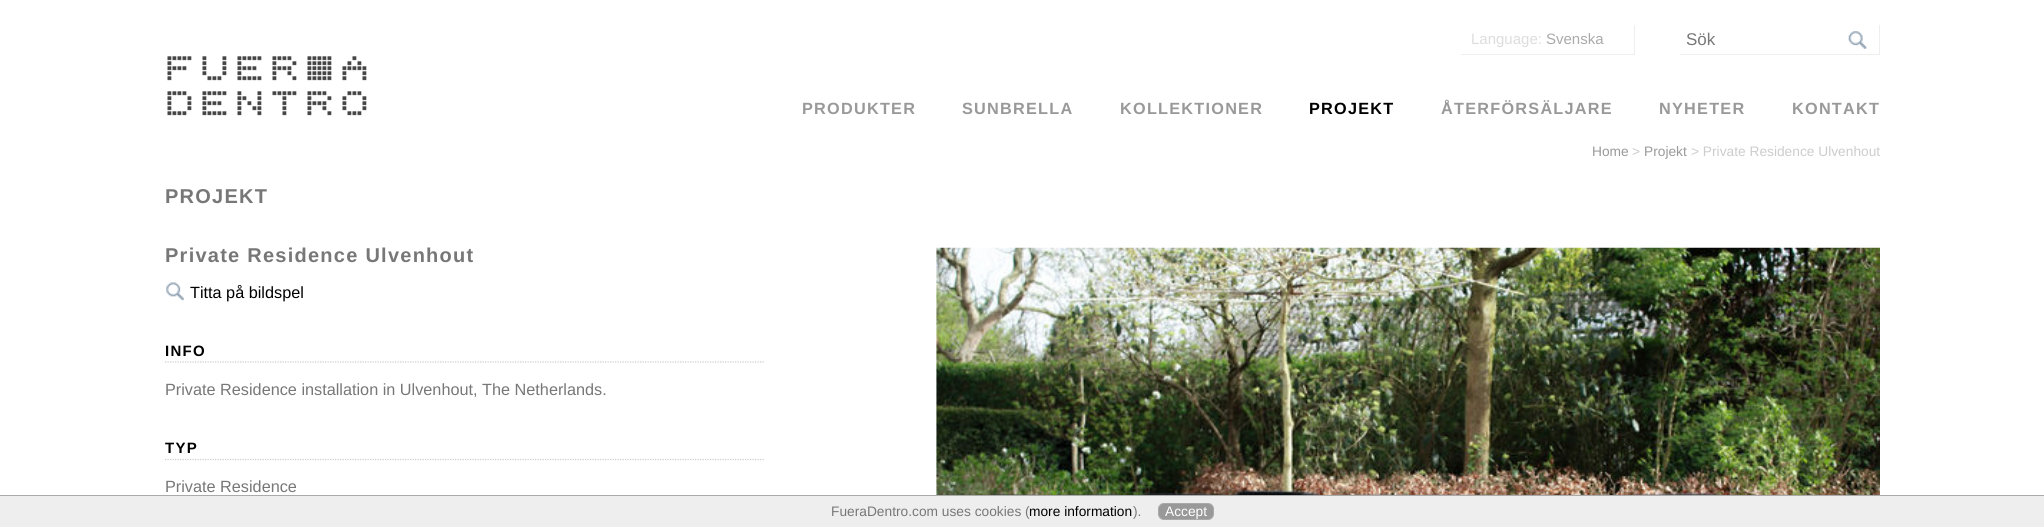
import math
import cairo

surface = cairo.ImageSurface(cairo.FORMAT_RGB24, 2044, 527)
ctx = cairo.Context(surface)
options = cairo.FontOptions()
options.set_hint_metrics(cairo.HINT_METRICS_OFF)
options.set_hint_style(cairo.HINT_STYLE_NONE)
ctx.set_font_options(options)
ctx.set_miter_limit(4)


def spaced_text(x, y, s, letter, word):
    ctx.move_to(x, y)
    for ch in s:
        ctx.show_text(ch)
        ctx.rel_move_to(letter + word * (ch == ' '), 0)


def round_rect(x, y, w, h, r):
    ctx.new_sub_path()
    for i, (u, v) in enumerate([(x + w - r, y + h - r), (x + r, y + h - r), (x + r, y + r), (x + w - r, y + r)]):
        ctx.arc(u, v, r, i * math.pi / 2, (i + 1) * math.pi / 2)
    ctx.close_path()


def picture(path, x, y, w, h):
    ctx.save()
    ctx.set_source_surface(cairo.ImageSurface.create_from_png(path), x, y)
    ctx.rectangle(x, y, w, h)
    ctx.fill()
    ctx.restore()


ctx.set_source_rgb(1, 1, 1)
ctx.paint()
ctx.set_source_rgb(0.933, 0.933, 0.933)
ctx.rectangle(1634, 25, 1, 30)
ctx.fill()
ctx.rectangle(1461, 54, 174, 1)
ctx.fill()
ctx.select_font_face("Liberation Sans")
ctx.set_font_size(15)
ctx.set_source_rgb(0.867, 0.867, 0.867)
ctx.move_to(1471, 44)
ctx.show_text("Language:")
ctx.set_source_rgb(0.667, 0.667, 0.667)
ctx.move_to(1546, 44)
ctx.show_text("Svenska")
picture("img1.png", 1848, 31, 19, 18)
ctx.set_source_rgb(0.933, 0.933, 0.933)
ctx.rectangle(1879, 25, 1, 30)
ctx.fill()
ctx.rectangle(1680, 54, 200, 1)
ctx.fill()
ctx.set_font_size(17)
ctx.set_source_rgb(0.467, 0.467, 0.467)
ctx.move_to(1686, 45)
ctx.show_text("Sök")
picture("img2.png", 167, 56, 200, 60)
ctx.select_font_face("Liberation Sans", cairo.FONT_SLANT_NORMAL, cairo.FONT_WEIGHT_BOLD)
ctx.set_font_size(16.25)
ctx.set_source_rgb(0.6, 0.6, 0.6)
spaced_text(802, 114, "PRODUKTER", 1.25, 0)
spaced_text(962, 114, "SUNBRELLA", 1.25, 0)
spaced_text(1120, 114, "KOLLEKTIONER", 1.25, 0)
ctx.set_source_rgb(0, 0, 0)
spaced_text(1309, 114, "PROJEKT", 1.25, 0)
ctx.set_source_rgb(0.6, 0.6, 0.6)
spaced_text(1441, 114, "ÅTERFÖRSÄLJARE", 1.25, 0)
spaced_text(1659, 114, "NYHETER", 1.25, 0)
spaced_text(1792, 114, "KONTAKT", 1.25, 0)
ctx.select_font_face("Liberation Sans")
ctx.set_font_size(13.75)
ctx.move_to(1592, 156)
ctx.show_text("Home")
ctx.set_source_rgb(0.8, 0.8, 0.8)
ctx.move_to(1632, 156)
ctx.show_text(">")
ctx.set_source_rgb(0.6, 0.6, 0.6)
ctx.move_to(1644, 156)
ctx.show_text("Projekt")
ctx.set_source_rgb(0.8, 0.8, 0.8)
ctx.move_to(1691, 156)
ctx.show_text("> Private Residence Ulvenhout")
ctx.select_font_face("Liberation Sans", cairo.FONT_SLANT_NORMAL, cairo.FONT_WEIGHT_BOLD)
ctx.set_font_size(20)
ctx.set_source_rgb(0.467, 0.467, 0.467)
spaced_text(165, 203, "PROJEKT", 1.25, 0)
spaced_text(165, 262, "Private Residence Ulvenhout", 1.25, 0)
picture("img3.png", 166, 282, 18, 19)
ctx.select_font_face("Liberation Sans")
ctx.set_font_size(16.25)
ctx.set_source_rgb(0, 0, 0)
ctx.move_to(190, 298)
ctx.show_text("Titta på bildspel")
ctx.new_path()
ctx.move_to(165, 362)
ctx.line_to(765, 362)
ctx.set_source_rgb(0.8, 0.8, 0.8)
ctx.set_line_width(1.2)
ctx.set_dash([1.25, 1.25])
ctx.stroke()
ctx.select_font_face("Liberation Sans", cairo.FONT_SLANT_NORMAL, cairo.FONT_WEIGHT_BOLD)
ctx.set_font_size(15)
ctx.set_source_rgb(0, 0, 0)
spaced_text(165, 356, "INFO", 1.25, 0)
ctx.select_font_face("Liberation Sans")
ctx.set_font_size(16.25)
ctx.set_source_rgb(0.467, 0.467, 0.467)
ctx.move_to(165, 395)
ctx.show_text("Private Residence installation in Ulvenhout, The Netherlands.")
ctx.new_path()
ctx.move_to(165, 459.5)
ctx.line_to(765, 459.5)
ctx.set_source_rgb(0.8, 0.8, 0.8)
ctx.stroke()
ctx.select_font_face("Liberation Sans", cairo.FONT_SLANT_NORMAL, cairo.FONT_WEIGHT_BOLD)
ctx.set_font_size(15)
ctx.set_source_rgb(0, 0, 0)
spaced_text(165, 453, "TYP", 1.25, 0)
ctx.select_font_face("Liberation Sans")
ctx.set_font_size(16.25)
ctx.set_source_rgb(0.467, 0.467, 0.467)
ctx.move_to(165, 492)
ctx.show_text("Private Residence")
picture("img4.png", 936, 247, 944, 248)
ctx.set_source_rgb(0.933, 0.933, 0.933)
ctx.rectangle(0, 496, 2044, 31)
ctx.fill()
ctx.set_source_rgb(0.667, 0.667, 0.667)
ctx.rectangle(0, 495, 2044, 1)
ctx.fill()
ctx.set_font_size(13.75)
ctx.set_source_rgb(0.467, 0.467, 0.467)
ctx.move_to(831, 516)
ctx.show_text("FueraDentro.com uses cookies (")
ctx.set_source_rgb(0, 0, 0)
ctx.move_to(1029, 516)
ctx.show_text("more information")
ctx.set_source_rgb(0.467, 0.467, 0.467)
ctx.move_to(1133, 516)
ctx.show_text(").")
ctx.set_source_rgb(0.6, 0.6, 0.6)
round_rect(1158.5, 503.5, 55, 16, 5.5)
ctx.fill_preserve()
ctx.set_source_rgb(0.667, 0.667, 0.667)
ctx.set_line_width(1)
ctx.set_dash([])
ctx.stroke()
ctx.set_source_rgb(1, 1, 1)
ctx.move_to(1165, 516)
ctx.show_text("Accept")
surface.write_to_png("page.png")
